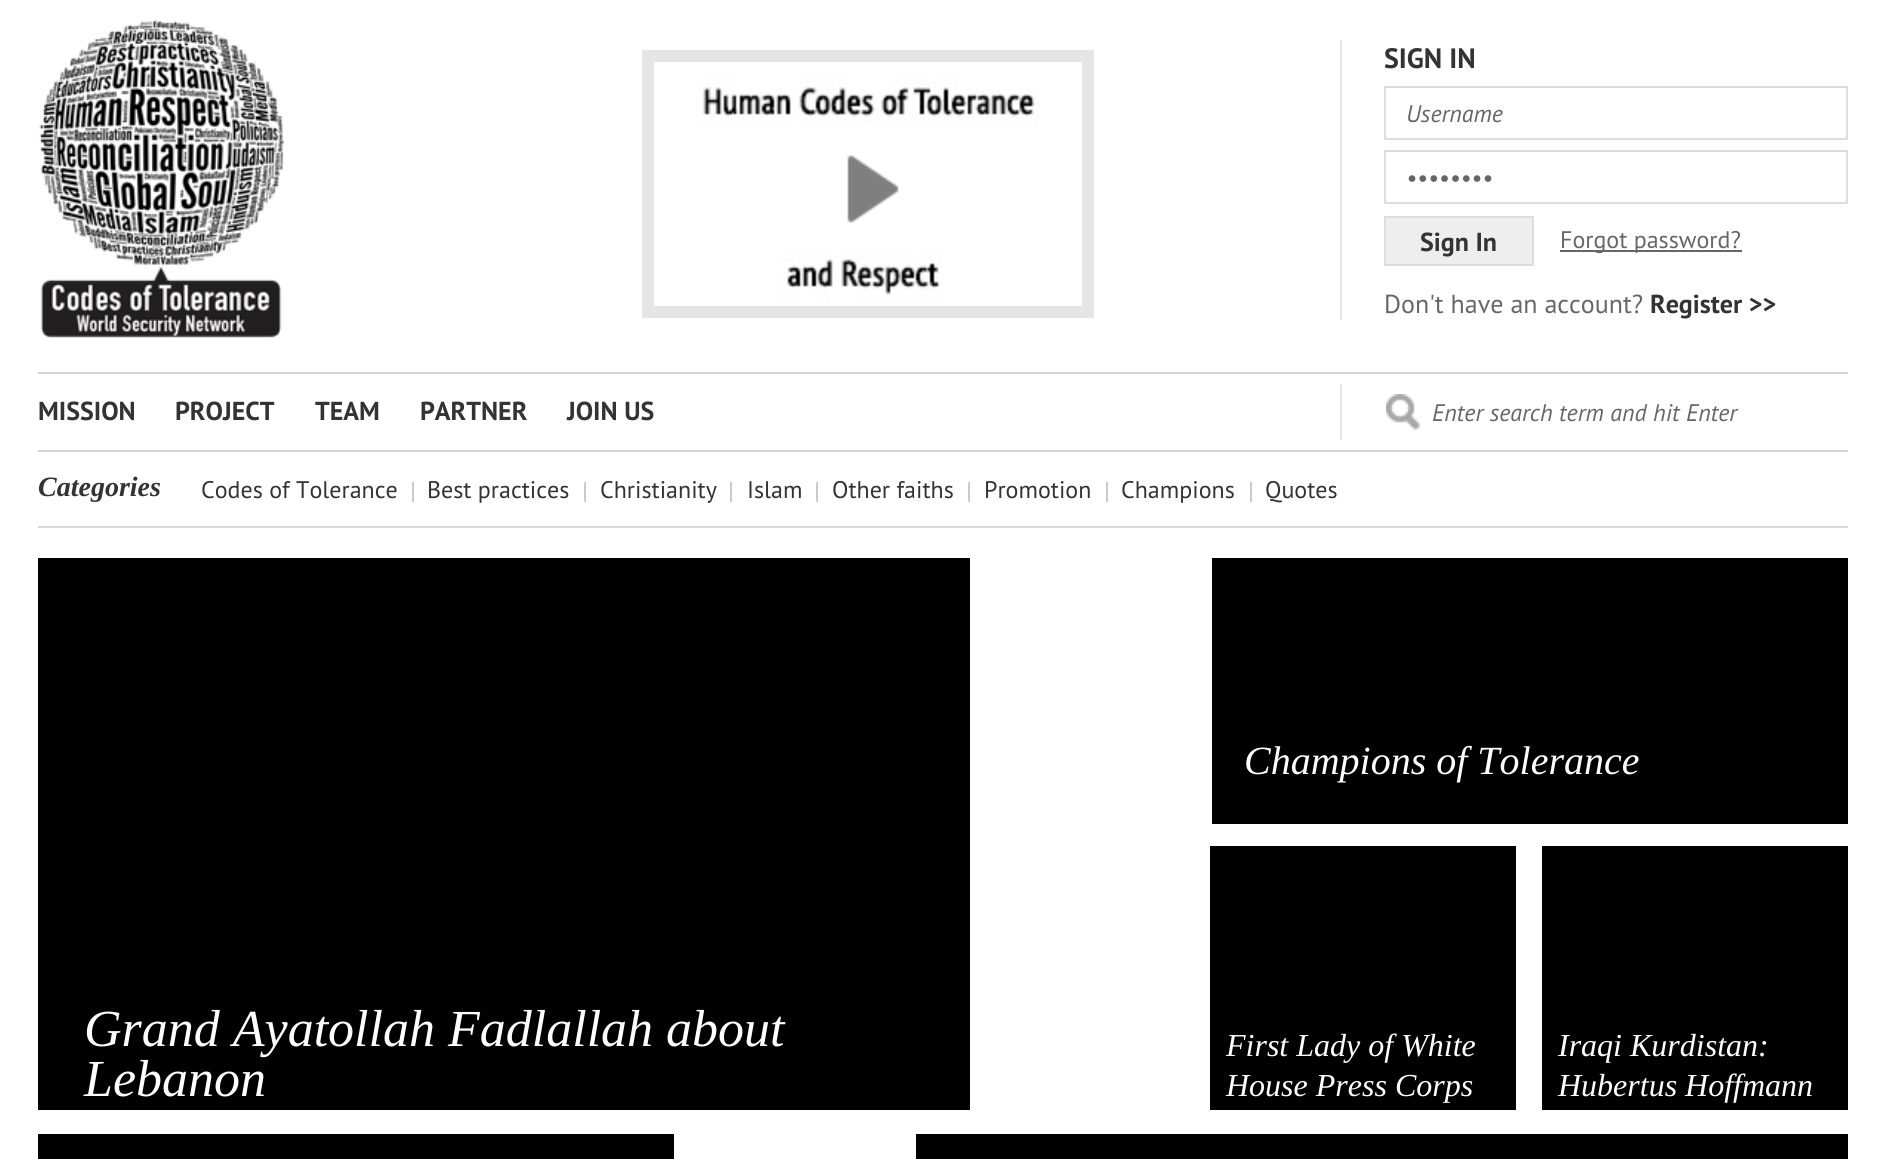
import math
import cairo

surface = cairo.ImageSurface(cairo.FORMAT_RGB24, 1885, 1159)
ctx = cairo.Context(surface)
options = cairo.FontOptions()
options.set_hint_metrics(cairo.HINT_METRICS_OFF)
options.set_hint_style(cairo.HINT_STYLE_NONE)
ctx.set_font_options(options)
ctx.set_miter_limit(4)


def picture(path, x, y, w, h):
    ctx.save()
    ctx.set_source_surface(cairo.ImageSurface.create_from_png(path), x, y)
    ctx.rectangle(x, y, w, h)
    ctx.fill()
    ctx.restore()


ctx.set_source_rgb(1, 1, 1)
ctx.paint()
picture("img1.png", 39, 20, 245, 318)
ctx.set_source_rgb(0.898, 0.898, 0.898)
ctx.rectangle(642, 50, 452, 268)
ctx.fill()
picture("img2.png", 654, 62, 428, 244)
picture("img3.png", 847, 155, 52, 68)
ctx.rectangle(1340, 40, 2, 280)
ctx.fill()
ctx.select_font_face("PT Sans", cairo.FONT_SLANT_NORMAL, cairo.FONT_WEIGHT_BOLD)
ctx.set_font_size(28)
ctx.set_source_rgb(0.2, 0.2, 0.2)
ctx.move_to(1384, 68)
ctx.show_text("SIGN IN")
ctx.rectangle(1385, 87, 462, 52)
ctx.set_source_rgb(0.867, 0.867, 0.867)
ctx.stroke()
ctx.select_font_face("PT Sans", cairo.FONT_SLANT_ITALIC)
ctx.set_font_size(24)
ctx.set_source_rgb(0.4, 0.4, 0.4)
ctx.move_to(1406, 122)
ctx.show_text("Username")
ctx.rectangle(1385, 151, 462, 52)
ctx.set_source_rgb(0.867, 0.867, 0.867)
ctx.stroke()
ctx.set_source_rgb(0.4, 0.4, 0.4)
ctx.move_to(1406, 186)
ctx.show_text("••••••••")
ctx.set_source_rgb(0.933, 0.933, 0.933)
ctx.rectangle(1385, 217, 148, 48)
ctx.fill_preserve()
ctx.set_source_rgb(0.867, 0.867, 0.867)
ctx.stroke()
ctx.select_font_face("PT Sans", cairo.FONT_SLANT_NORMAL, cairo.FONT_WEIGHT_BOLD)
ctx.set_font_size(26)
ctx.set_source_rgb(0.2, 0.2, 0.2)
ctx.move_to(1420, 251)
ctx.show_text("Sign In")
ctx.set_source_rgb(0.4, 0.4, 0.4)
ctx.rectangle(1560, 250, 182, 2)
ctx.fill()
ctx.select_font_face("PT Sans")
ctx.set_font_size(24)
ctx.move_to(1560, 248)
ctx.show_text("Forgot password?")
ctx.set_font_size(26)
ctx.move_to(1384, 313)
ctx.show_text("Don't have an account?")
ctx.select_font_face("PT Sans", cairo.FONT_SLANT_NORMAL, cairo.FONT_WEIGHT_BOLD)
ctx.set_source_rgb(0.2, 0.2, 0.2)
ctx.move_to(1650, 313)
ctx.show_text("Register >>")
ctx.set_source_rgb(0.827, 0.827, 0.827)
ctx.rectangle(38, 372, 1810, 2)
ctx.fill()
ctx.rectangle(38, 450, 1810, 2)
ctx.fill()
ctx.set_source_rgb(0.2, 0.2, 0.2)
ctx.move_to(38, 420)
ctx.show_text("MISSION")
ctx.move_to(175, 420)
ctx.show_text("PROJECT")
ctx.move_to(315, 420)
ctx.show_text("TEAM")
ctx.move_to(420, 420)
ctx.show_text("PARTNER")
ctx.move_to(567, 420)
ctx.show_text("JOIN US")
picture("img4.png", 1386, 394, 34, 36)
ctx.set_source_rgb(0.898, 0.898, 0.898)
ctx.rectangle(1340, 384, 2, 56)
ctx.fill()
ctx.select_font_face("PT Sans", cairo.FONT_SLANT_ITALIC)
ctx.set_font_size(24)
ctx.set_source_rgb(0.4, 0.4, 0.4)
ctx.move_to(1432, 421)
ctx.show_text("Enter search term and hit Enter")
ctx.set_source_rgb(0.855, 0.855, 0.855)
ctx.rectangle(38, 526, 1810, 2)
ctx.fill()
ctx.select_font_face("Tinos", cairo.FONT_SLANT_ITALIC, cairo.FONT_WEIGHT_BOLD)
ctx.set_font_size(28)
ctx.set_source_rgb(0.2, 0.2, 0.2)
ctx.move_to(38, 496)
ctx.show_text("Categories")
ctx.select_font_face("PT Sans")
ctx.set_font_size(24)
ctx.move_to(201, 498)
ctx.show_text("Codes of Tolerance")
ctx.set_source_rgb(0.8, 0.8, 0.8)
ctx.rectangle(412, 482, 2, 20)
ctx.fill()
ctx.set_source_rgb(0.2, 0.2, 0.2)
ctx.move_to(427, 498)
ctx.show_text("Best practices")
ctx.set_source_rgb(0.8, 0.8, 0.8)
ctx.rectangle(584, 482, 2, 20)
ctx.fill()
ctx.set_source_rgb(0.2, 0.2, 0.2)
ctx.move_to(600, 498)
ctx.show_text("Christianity")
ctx.set_source_rgb(0.8, 0.8, 0.8)
ctx.rectangle(730, 482, 2, 20)
ctx.fill()
ctx.set_source_rgb(0.2, 0.2, 0.2)
ctx.move_to(747, 498)
ctx.show_text("Islam")
ctx.set_source_rgb(0.8, 0.8, 0.8)
ctx.rectangle(816, 482, 2, 20)
ctx.fill()
ctx.set_source_rgb(0.2, 0.2, 0.2)
ctx.move_to(832, 498)
ctx.show_text("Other faiths")
ctx.set_source_rgb(0.8, 0.8, 0.8)
ctx.rectangle(968, 482, 2, 20)
ctx.fill()
ctx.set_source_rgb(0.2, 0.2, 0.2)
ctx.move_to(984, 498)
ctx.show_text("Promotion")
ctx.set_source_rgb(0.8, 0.8, 0.8)
ctx.rectangle(1106, 482, 2, 20)
ctx.fill()
ctx.set_source_rgb(0.2, 0.2, 0.2)
ctx.move_to(1121, 498)
ctx.show_text("Champions")
ctx.set_source_rgb(0.8, 0.8, 0.8)
ctx.rectangle(1250, 482, 2, 20)
ctx.fill()
ctx.set_source_rgb(0.2, 0.2, 0.2)
ctx.move_to(1265, 498)
ctx.show_text("Quotes")
ctx.set_source_rgb(0, 0, 0)
ctx.rectangle(1212, 558, 636, 266)
ctx.fill()
ctx.select_font_face("Tinos", cairo.FONT_SLANT_ITALIC)
ctx.set_font_size(40)
ctx.set_source_rgb(1, 1, 1)
ctx.move_to(1244, 774)
ctx.show_text("Champions of Tolerance")
ctx.set_source_rgb(0, 0, 0)
ctx.rectangle(38, 558, 932, 552)
ctx.fill()
ctx.set_font_size(52)
ctx.set_source_rgb(1, 1, 1)
ctx.move_to(84, 1046)
ctx.show_text("Grand Ayatollah Fadlallah about")
ctx.move_to(84, 1096)
ctx.show_text("Lebanon")
ctx.set_source_rgb(0, 0, 0)
ctx.rectangle(1210, 846, 306, 264)
ctx.fill()
ctx.set_font_size(32)
ctx.set_source_rgb(1, 1, 1)
ctx.move_to(1226, 1056)
ctx.show_text("First Lady of White")
ctx.move_to(1226, 1096)
ctx.show_text("House Press Corps")
ctx.set_source_rgb(0, 0, 0)
ctx.rectangle(1542, 846, 306, 264)
ctx.fill()
ctx.set_source_rgb(1, 1, 1)
ctx.move_to(1558, 1056)
ctx.show_text("Iraqi Kurdistan:")
ctx.move_to(1558, 1096)
ctx.show_text("Hubertus Hoffmann")
ctx.set_source_rgb(0, 0, 0)
ctx.rectangle(38, 1134, 636, 25)
ctx.fill()
ctx.rectangle(916, 1134, 932, 25)
ctx.fill()
surface.write_to_png("page.png")
